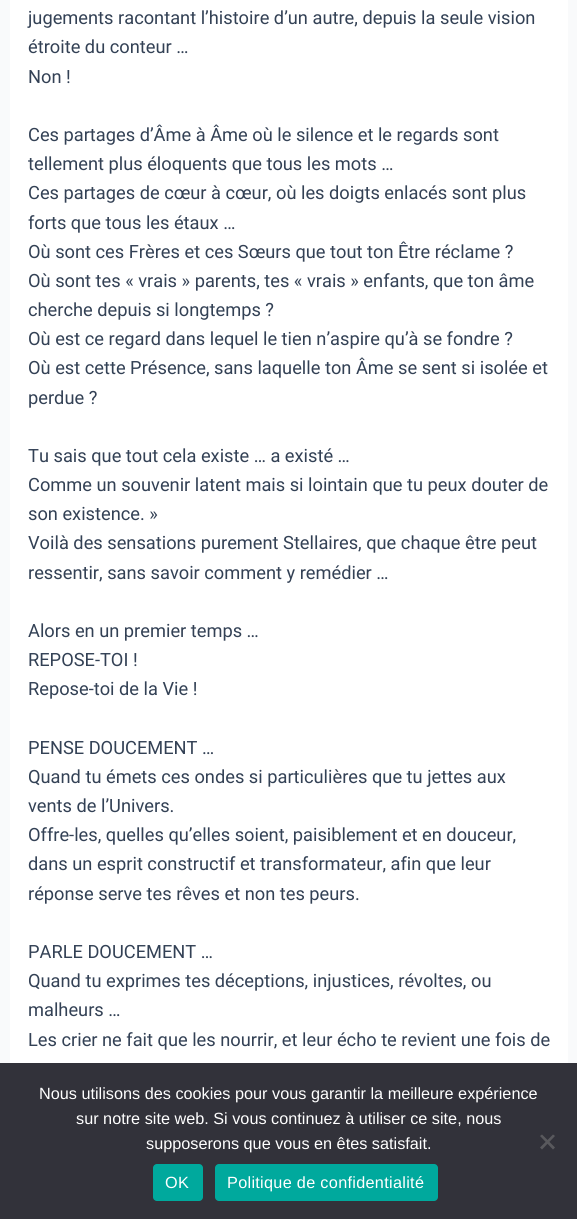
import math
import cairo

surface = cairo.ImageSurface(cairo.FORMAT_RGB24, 577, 1219)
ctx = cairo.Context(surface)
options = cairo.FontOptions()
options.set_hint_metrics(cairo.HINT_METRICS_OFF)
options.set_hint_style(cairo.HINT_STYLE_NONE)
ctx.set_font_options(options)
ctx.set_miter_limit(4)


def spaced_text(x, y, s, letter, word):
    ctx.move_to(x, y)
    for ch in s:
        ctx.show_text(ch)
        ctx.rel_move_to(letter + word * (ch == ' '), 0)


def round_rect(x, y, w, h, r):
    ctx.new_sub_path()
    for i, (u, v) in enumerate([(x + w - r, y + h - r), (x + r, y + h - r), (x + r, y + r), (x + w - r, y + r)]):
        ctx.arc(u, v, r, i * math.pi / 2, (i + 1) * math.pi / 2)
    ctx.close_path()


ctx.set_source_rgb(0.976, 0.98, 0.984)
ctx.paint()
ctx.set_source_rgb(1, 1, 1)
ctx.rectangle(10, 0, 558, 1063)
ctx.fill()
ctx.select_font_face("Roboto")
ctx.set_font_size(18.25)
ctx.set_source_rgb(0.2, 0.255, 0.333)
ctx.move_to(28, 24)
ctx.show_text("jugements racontant l’histoire d’un autre, depuis la seule vision")
ctx.move_to(28, 53)
ctx.show_text("étroite du conteur …")
ctx.move_to(28, 83)
ctx.show_text("Non !")
ctx.move_to(28, 141)
ctx.show_text("Ces partages d’Âme à Âme où le silence et le regards sont")
ctx.move_to(28, 170)
ctx.show_text("tellement plus éloquents que tous les mots …")
ctx.move_to(28, 199)
ctx.show_text("Ces partages de cœur à cœur, où les doigts enlacés sont plus")
ctx.move_to(28, 229)
ctx.show_text("forts que tous les étaux …")
ctx.move_to(28, 258)
ctx.show_text("Où sont ces Frères et ces Sœurs que tout ton Être réclame ?")
ctx.move_to(28, 287)
ctx.show_text("Où sont tes « vrais » parents, tes « vrais » enfants, que ton âme")
ctx.move_to(28, 316)
ctx.show_text("cherche depuis si longtemps ?")
ctx.move_to(28, 345)
ctx.show_text("Où est ce regard dans lequel le tien n’aspire qu’à se fondre ?")
ctx.move_to(28, 374)
ctx.show_text("Où est cette Présence, sans laquelle ton Âme se sent si isolée et")
ctx.move_to(28, 404)
ctx.show_text("perdue ?")
ctx.move_to(28, 462)
ctx.show_text("Tu sais que tout cela existe … a existé …")
ctx.move_to(28, 491)
ctx.show_text("Comme un souvenir latent mais si lointain que tu peux douter de")
ctx.move_to(28, 520)
ctx.show_text("son existence. »")
ctx.move_to(28, 549)
ctx.show_text("Voilà des sensations purement Stellaires, que chaque être peut")
ctx.move_to(28, 579)
ctx.show_text("ressentir, sans savoir comment y remédier …")
ctx.move_to(28, 637)
ctx.show_text("Alors en un premier temps …")
ctx.move_to(28, 666)
ctx.show_text("REPOSE-TOI !")
ctx.move_to(28, 695)
ctx.show_text("Repose-toi de la Vie !")
ctx.move_to(28, 754)
ctx.show_text("PENSE DOUCEMENT …")
ctx.move_to(28, 783)
ctx.show_text("Quand tu émets ces ondes si particulières que tu jettes aux")
ctx.move_to(28, 812)
ctx.show_text("vents de l’Univers.")
ctx.move_to(28, 841)
ctx.show_text("Offre-les, quelles qu’elles soient, paisiblement et en douceur,")
ctx.move_to(28, 870)
ctx.show_text("dans un esprit constructif et transformateur, afin que leur")
ctx.move_to(28, 900)
ctx.show_text("réponse serve tes rêves et non tes peurs.")
ctx.move_to(28, 958)
ctx.show_text("PARLE DOUCEMENT …")
ctx.move_to(28, 987)
ctx.show_text("Quand tu exprimes tes déceptions, injustices, révoltes, ou")
ctx.move_to(28, 1016)
ctx.show_text("malheurs …")
ctx.move_to(28, 1046)
ctx.show_text("Les crier ne fait que les nourrir, et leur écho te revient une fois de")
ctx.set_source_rgb(0.196, 0.196, 0.227)
ctx.rectangle(0, 1063, 577, 156)
ctx.fill()
ctx.select_font_face("Liberation Sans")
ctx.set_font_size(16.25)
ctx.set_source_rgb(1, 1, 1)
ctx.move_to(39, 1099)
ctx.show_text("Nous utilisons des cookies pour vous garantir la meilleure expérience")
ctx.move_to(76, 1124)
ctx.show_text("sur notre site web. Si vous continuez à utiliser ce site, nous")
ctx.move_to(146, 1149)
ctx.show_text("supposerons que vous en êtes satisfait.")
ctx.set_source_rgb(0.349, 0.349, 0.365)
ctx.new_path()
ctx.move_to(553, 1134.5)
ctx.line_to(555, 1136)
ctx.line_to(542, 1149.5)
ctx.line_to(540, 1147.5)
ctx.close_path()
ctx.fill()
ctx.new_path()
ctx.move_to(540, 1136)
ctx.line_to(542, 1134.5)
ctx.line_to(555, 1147.5)
ctx.line_to(553, 1149.5)
ctx.close_path()
ctx.fill()
ctx.set_source_rgb(0, 0.663, 0.616)
round_rect(153, 1164, 50, 37, 4)
ctx.fill()
ctx.set_source_rgb(1, 1, 1)
spaced_text(165, 1188, "OK", 0.3, 0)
ctx.set_source_rgb(0, 0.663, 0.616)
round_rect(215, 1164, 223, 37, 4)
ctx.fill()
ctx.set_source_rgb(1, 1, 1)
spaced_text(227, 1188, "Politique de confidentialité", 0.3, 0)
surface.write_to_png("page.png")
